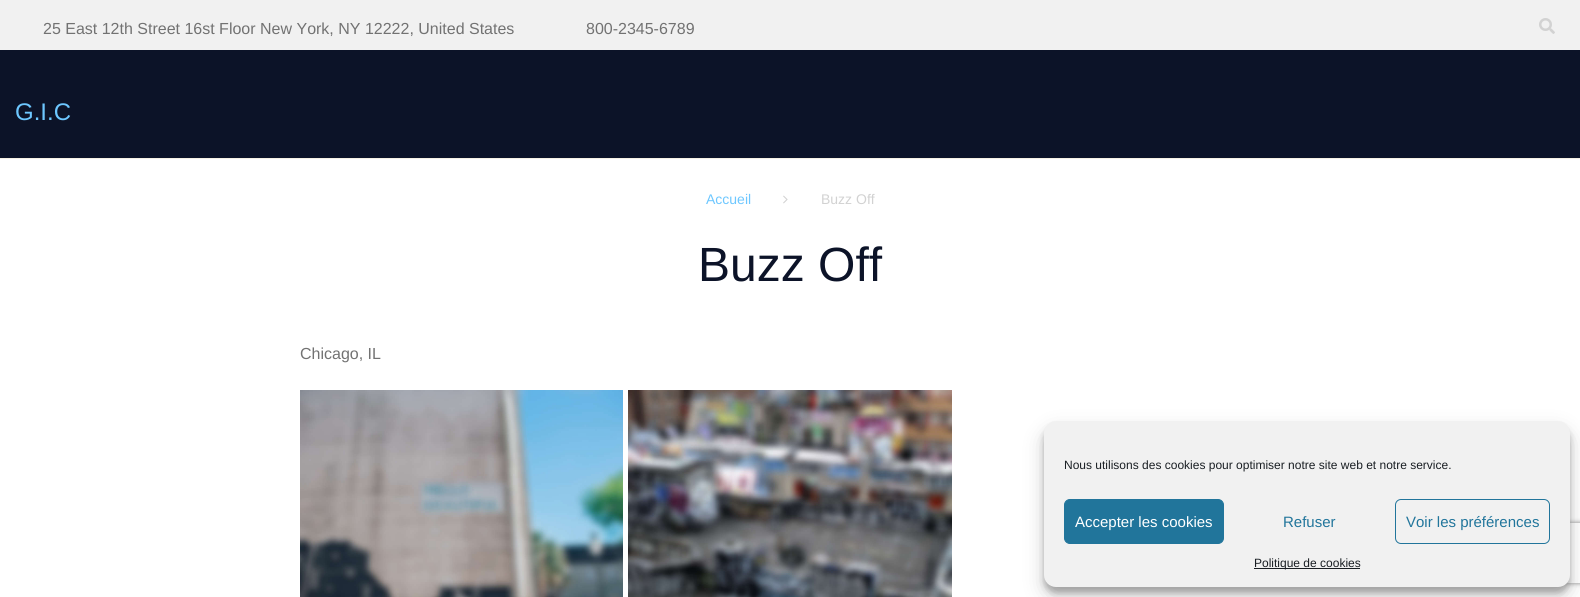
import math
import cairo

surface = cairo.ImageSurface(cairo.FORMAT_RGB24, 1580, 597)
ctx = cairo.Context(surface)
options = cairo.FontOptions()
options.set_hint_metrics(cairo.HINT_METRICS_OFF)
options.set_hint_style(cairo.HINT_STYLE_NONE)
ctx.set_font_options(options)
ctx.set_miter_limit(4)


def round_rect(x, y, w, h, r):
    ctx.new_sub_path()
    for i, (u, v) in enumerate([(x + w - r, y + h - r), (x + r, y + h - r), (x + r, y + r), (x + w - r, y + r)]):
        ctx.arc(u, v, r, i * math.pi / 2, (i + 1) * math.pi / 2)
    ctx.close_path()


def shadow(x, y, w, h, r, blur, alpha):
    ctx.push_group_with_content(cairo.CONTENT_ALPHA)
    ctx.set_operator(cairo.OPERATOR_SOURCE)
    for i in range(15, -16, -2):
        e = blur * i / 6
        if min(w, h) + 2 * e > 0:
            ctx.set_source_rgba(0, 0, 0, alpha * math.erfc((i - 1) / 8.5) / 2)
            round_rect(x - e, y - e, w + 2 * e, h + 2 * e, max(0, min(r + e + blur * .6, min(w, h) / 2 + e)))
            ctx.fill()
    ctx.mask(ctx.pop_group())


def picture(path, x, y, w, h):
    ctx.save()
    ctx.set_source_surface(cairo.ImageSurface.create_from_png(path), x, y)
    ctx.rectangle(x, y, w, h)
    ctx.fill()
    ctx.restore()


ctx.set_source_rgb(1, 1, 1)
ctx.paint()
ctx.set_source_rgb(0.945, 0.945, 0.945)
ctx.rectangle(0, 0, 1580, 50)
ctx.fill()
ctx.select_font_face("Liberation Sans")
ctx.set_font_size(16)
ctx.set_source_rgb(0.447, 0.447, 0.447)
ctx.move_to(43, 34)
ctx.show_text("25 East 12th Street 16st Floor New York, NY 12222, United States")
ctx.move_to(586, 34)
ctx.show_text("800-2345-6789")
picture("img1.png", 1539, 18, 16, 16)
ctx.set_source_rgb(0.047, 0.078, 0.157)
ctx.rectangle(0, 50, 1580, 108)
ctx.fill()
ctx.set_source_rgb(0.961, 0.945, 0.894)
ctx.rectangle(0, 158, 1580, 1)
ctx.fill()
ctx.set_font_size(24)
ctx.set_source_rgb(0.427, 0.78, 1)
ctx.move_to(15, 120)
ctx.show_text("G.I.C")
ctx.set_font_size(14)
ctx.move_to(706, 204)
ctx.show_text("Accueil")
picture("img2.png", 783, 195, 5, 9)
ctx.set_source_rgb(0.824, 0.824, 0.824)
ctx.move_to(821, 204)
ctx.show_text("Buzz Off")
ctx.set_font_size(48)
ctx.set_source_rgb(0.047, 0.078, 0.157)
ctx.move_to(698, 281)
ctx.show_text("Buzz Off")
ctx.set_font_size(16)
ctx.set_source_rgb(0.447, 0.447, 0.447)
ctx.move_to(300, 359)
ctx.show_text("Chicago, IL")
picture("img3.png", 300, 390, 323, 207)
picture("img4.png", 628, 390, 324, 207)
ctx.set_source_rgb(0, 0, 0)
shadow(1044, 427, 526, 166, 12, 3, 0.23)
shadow(1044, 431, 526, 166, 12, 10, 0.19)
ctx.save()
ctx.set_fill_rule(cairo.FILL_RULE_EVEN_ODD)
ctx.new_path()
ctx.move_to(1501, 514)
ctx.line_to(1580, 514)
ctx.line_to(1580, 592)
ctx.line_to(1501, 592)
ctx.close_path()
ctx.move_to(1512, 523)
ctx.line_to(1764, 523)
ctx.curve_to(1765, 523, 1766, 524, 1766, 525)
ctx.line_to(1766, 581)
ctx.curve_to(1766, 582, 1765, 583, 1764, 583)
ctx.line_to(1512, 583)
ctx.curve_to(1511, 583, 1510, 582, 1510, 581)
ctx.line_to(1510, 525)
ctx.curve_to(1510, 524, 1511, 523, 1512, 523)
ctx.close_path()
ctx.clip()
ctx.set_source_rgb(0.502, 0.502, 0.502)
shadow(1510, 523, 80, 60, 2, 2.5, 1)
ctx.restore()
ctx.set_source_rgb(0.945, 0.945, 0.945)
round_rect(1044, 421, 526, 166, 12)
ctx.fill()
ctx.set_font_size(12)
ctx.set_source_rgb(0.098, 0.118, 0.137)
ctx.move_to(1064, 469)
ctx.show_text("Nous utilisons des cookies pour optimiser notre site web et notre service.")
ctx.set_source_rgb(0.129, 0.459, 0.608)
round_rect(1064.5, 499.5, 159, 44, 5.5)
ctx.fill_preserve()
ctx.set_line_width(1)
ctx.stroke()
ctx.set_font_size(15)
ctx.set_source_rgb(1, 1, 1)
ctx.move_to(1075, 527)
ctx.show_text("Accepter les cookies")
ctx.set_source_rgb(0.129, 0.459, 0.608)
ctx.move_to(1283, 527)
ctx.show_text("Refuser")
round_rect(1395.5, 499.5, 154, 44, 5.5)
ctx.stroke()
ctx.move_to(1406, 527)
ctx.show_text("Voir les préférences")
ctx.set_source_rgb(0.098, 0.118, 0.137)
ctx.rectangle(1254, 568, 106, 1)
ctx.fill()
ctx.set_font_size(12)
ctx.move_to(1254, 567)
ctx.show_text("Politique de cookies")
surface.write_to_png("page.png")
